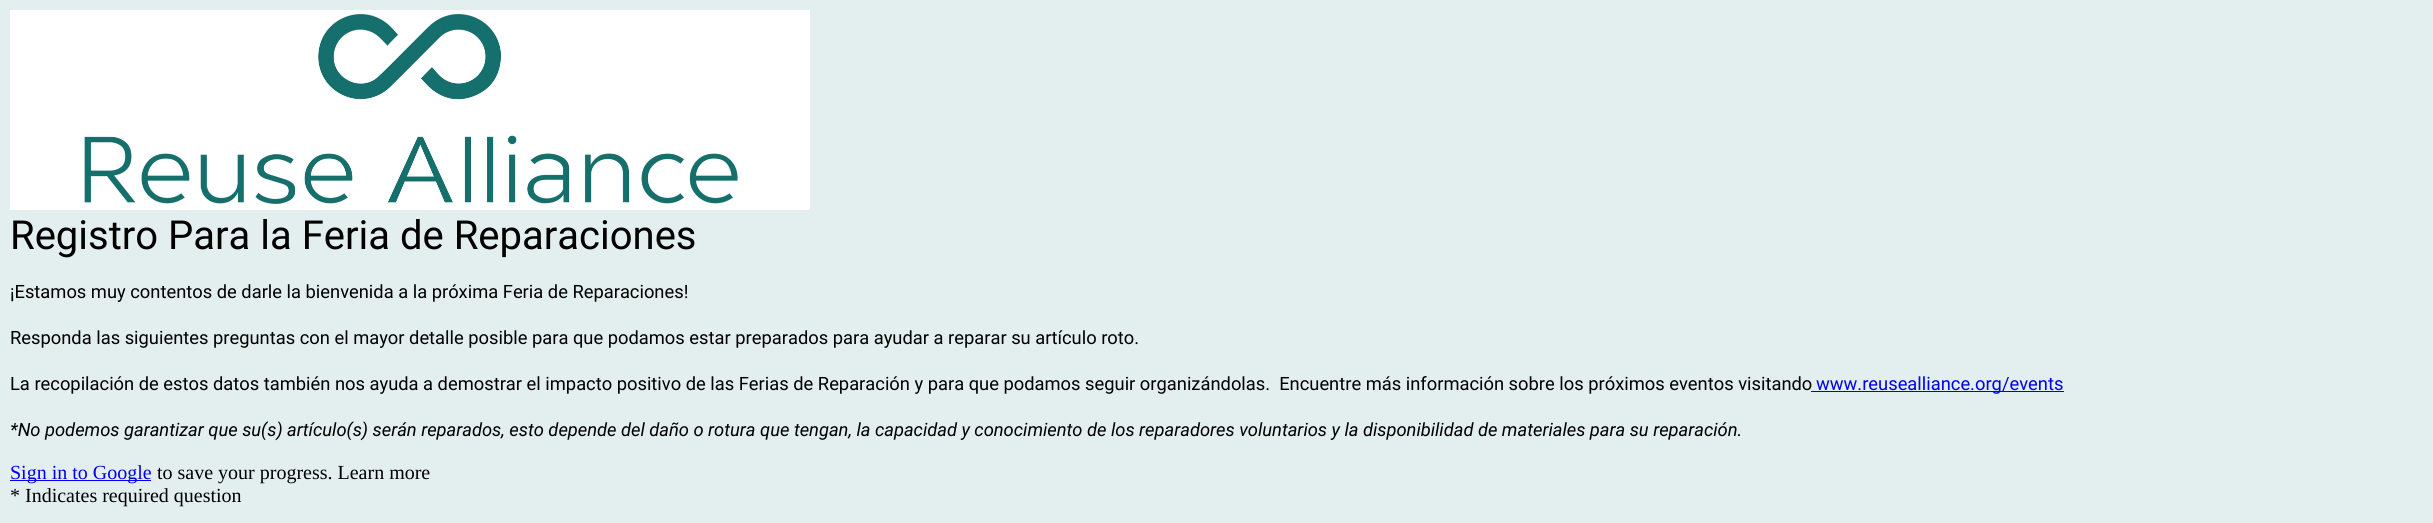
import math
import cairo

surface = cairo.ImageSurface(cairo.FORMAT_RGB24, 2433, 523)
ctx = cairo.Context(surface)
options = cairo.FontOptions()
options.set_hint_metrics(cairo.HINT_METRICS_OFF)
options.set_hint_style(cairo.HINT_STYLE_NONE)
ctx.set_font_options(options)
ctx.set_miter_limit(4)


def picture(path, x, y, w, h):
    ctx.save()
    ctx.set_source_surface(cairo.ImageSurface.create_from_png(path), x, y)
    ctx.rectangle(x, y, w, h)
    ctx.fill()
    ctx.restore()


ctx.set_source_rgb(0.89, 0.937, 0.933)
ctx.paint()
picture("img1.png", 10, 10, 800, 200)
ctx.select_font_face("Roboto")
ctx.set_font_size(40)
ctx.set_source_rgb(0, 0, 0)
ctx.move_to(10, 249)
ctx.show_text("Registro Para la Feria de Reparaciones")
ctx.set_font_size(18.33)
ctx.move_to(10, 298)
ctx.show_text("¡Estamos muy contentos de darle la bienvenida a la próxima Feria de Reparaciones!")
ctx.move_to(10, 344)
ctx.show_text("Responda las siguientes preguntas con el mayor detalle posible para que podamos estar preparados para ayudar a reparar su artículo roto.")
ctx.move_to(10, 390)
ctx.show_text("La recopilación de estos datos también nos ayuda a demostrar el impacto positivo de las Ferias de Reparación y para que podamos seguir organizándolas.  Encuentre más información sobre los próximos eventos visitando")
ctx.set_source_rgb(0, 0, 0.933)
ctx.rectangle(1811, 391, 253, 1)
ctx.fill()
ctx.move_to(1816, 390)
ctx.show_text("www.reusealliance.org/events")
ctx.select_font_face("Roboto", cairo.FONT_SLANT_ITALIC)
ctx.set_source_rgb(0, 0, 0)
ctx.move_to(10, 436)
ctx.show_text("*No podemos garantizar que su(s) artículo(s) serán reparados, esto depende del daño o rotura que tengan, la capacidad y conocimiento de los reparadores voluntarios y la disponibilidad de materiales para su reparación.")
ctx.set_source_rgb(0, 0, 0.933)
ctx.rectangle(10, 480, 141, 1)
ctx.fill()
ctx.select_font_face("Liberation Serif")
ctx.set_font_size(20)
ctx.move_to(10, 479)
ctx.show_text("Sign in to Google")
ctx.set_source_rgb(0, 0, 0)
ctx.move_to(157, 479)
ctx.show_text("to save your progress. Learn more")
ctx.move_to(10, 502)
ctx.show_text("* Indicates required question")
surface.write_to_png("page.png")
